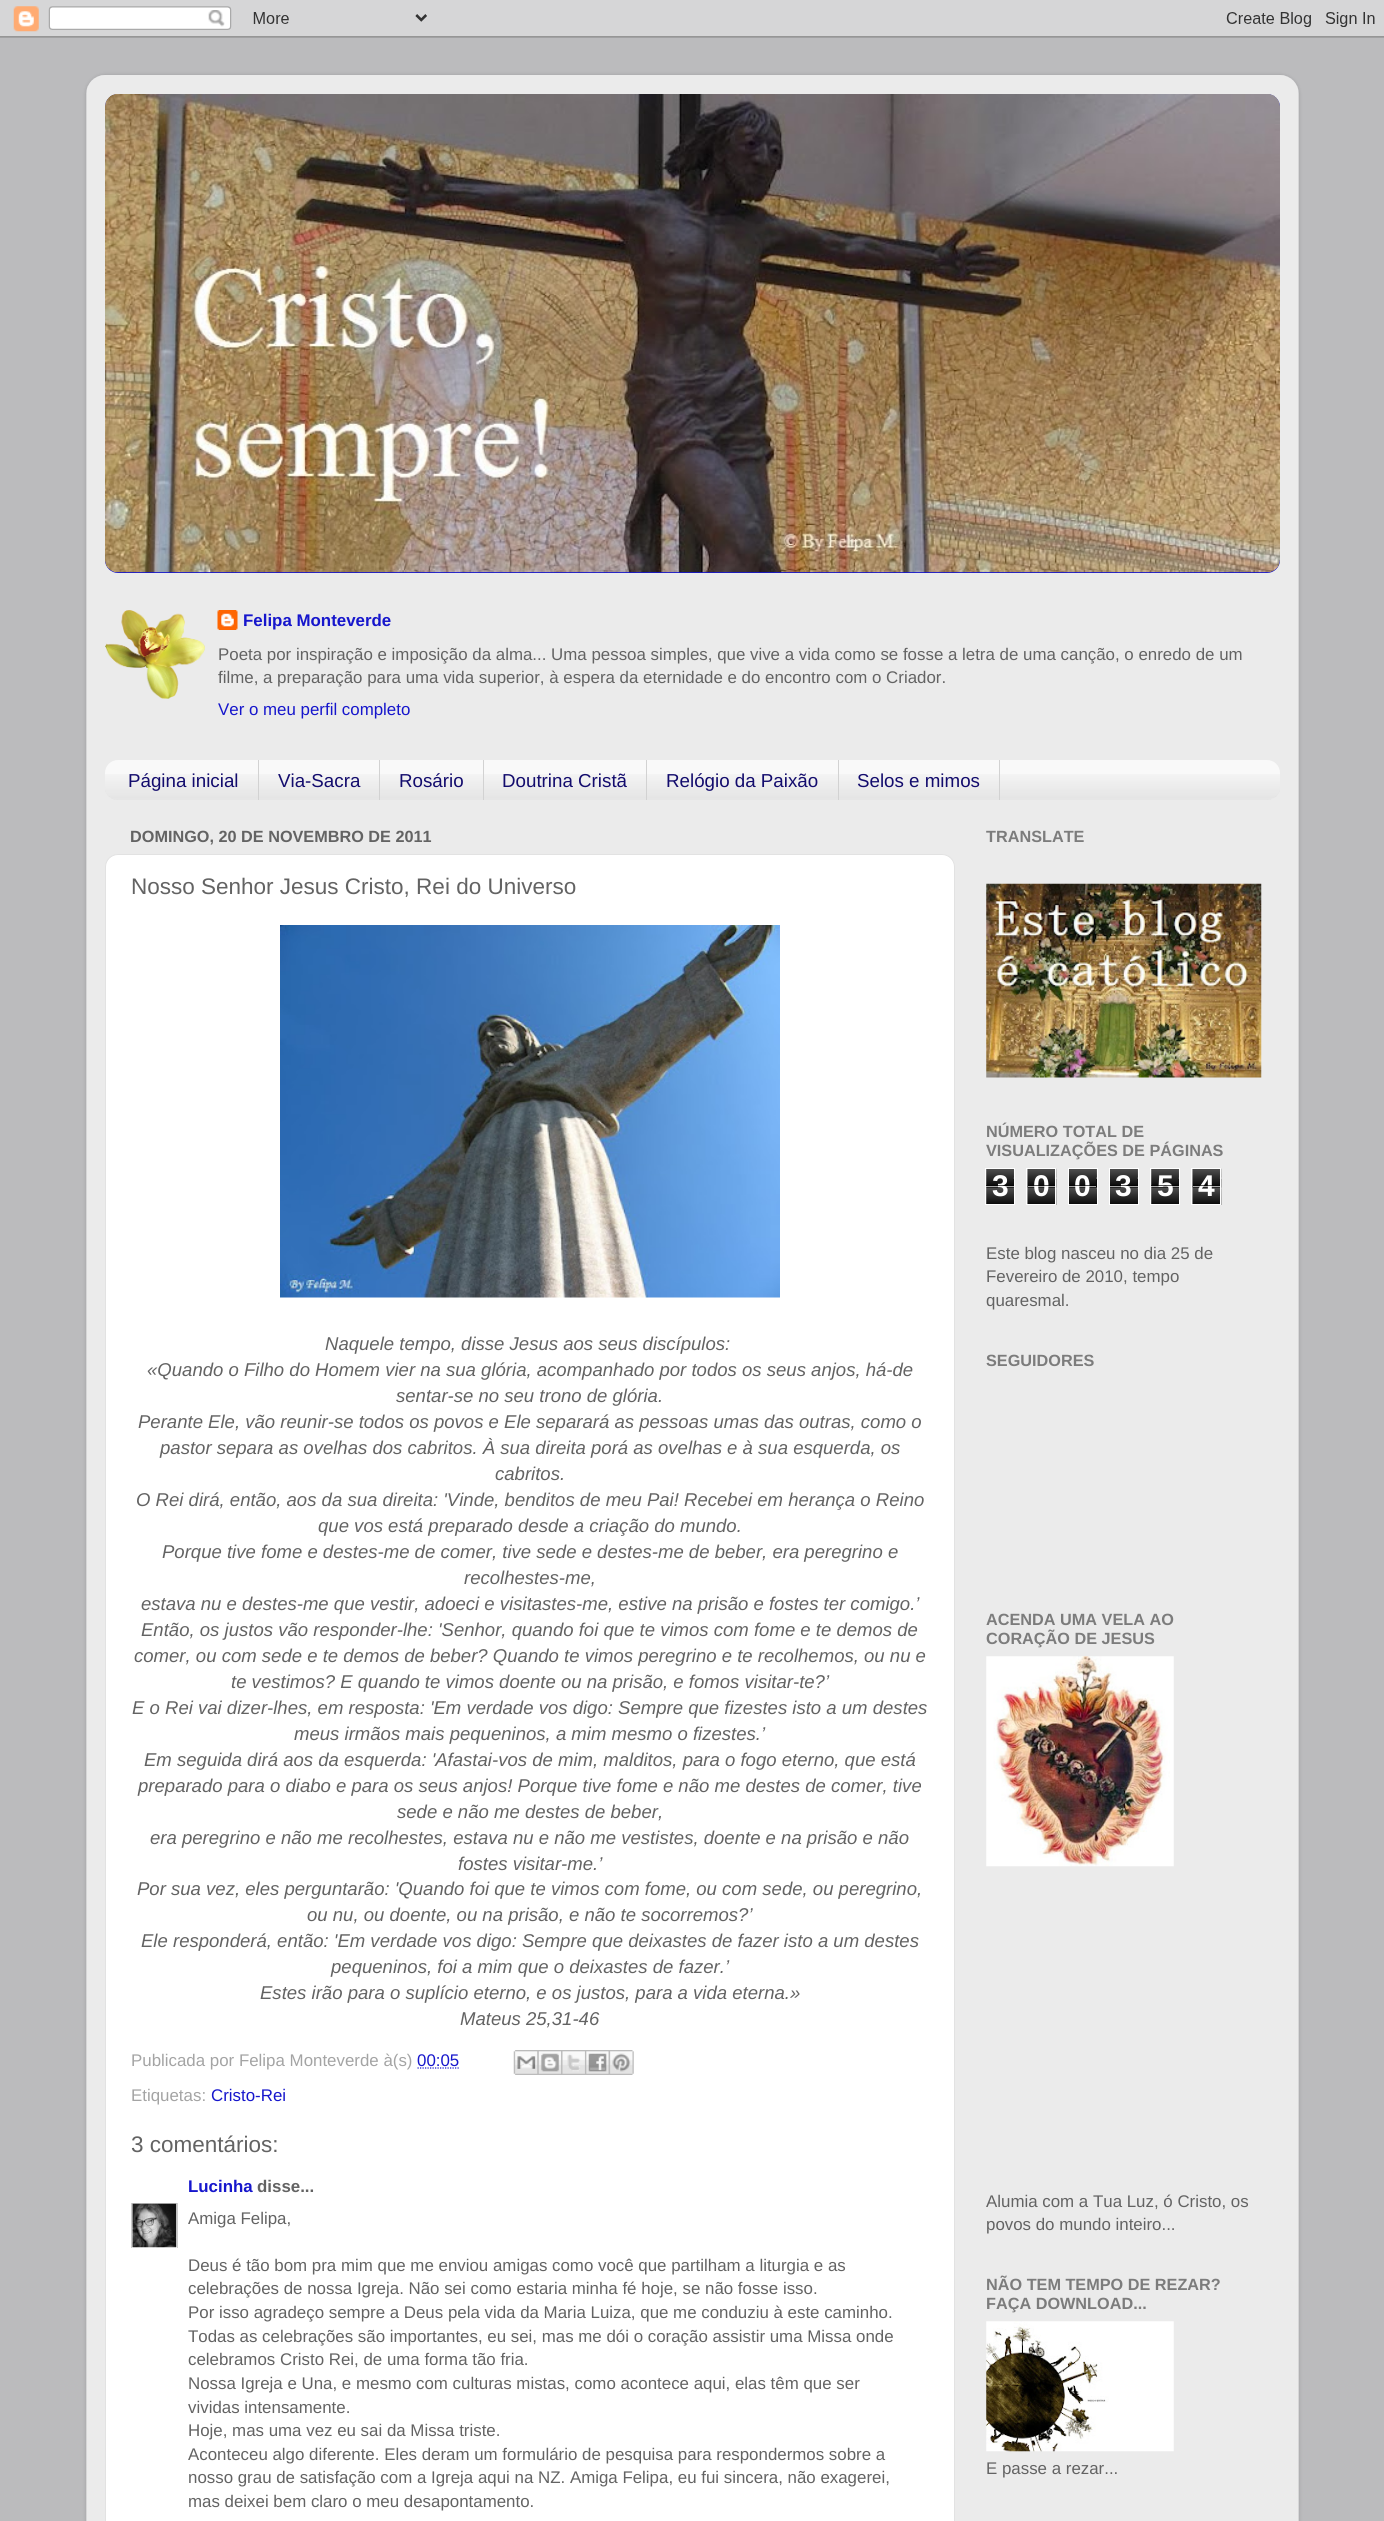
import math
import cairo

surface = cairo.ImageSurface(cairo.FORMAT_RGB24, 1384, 2521)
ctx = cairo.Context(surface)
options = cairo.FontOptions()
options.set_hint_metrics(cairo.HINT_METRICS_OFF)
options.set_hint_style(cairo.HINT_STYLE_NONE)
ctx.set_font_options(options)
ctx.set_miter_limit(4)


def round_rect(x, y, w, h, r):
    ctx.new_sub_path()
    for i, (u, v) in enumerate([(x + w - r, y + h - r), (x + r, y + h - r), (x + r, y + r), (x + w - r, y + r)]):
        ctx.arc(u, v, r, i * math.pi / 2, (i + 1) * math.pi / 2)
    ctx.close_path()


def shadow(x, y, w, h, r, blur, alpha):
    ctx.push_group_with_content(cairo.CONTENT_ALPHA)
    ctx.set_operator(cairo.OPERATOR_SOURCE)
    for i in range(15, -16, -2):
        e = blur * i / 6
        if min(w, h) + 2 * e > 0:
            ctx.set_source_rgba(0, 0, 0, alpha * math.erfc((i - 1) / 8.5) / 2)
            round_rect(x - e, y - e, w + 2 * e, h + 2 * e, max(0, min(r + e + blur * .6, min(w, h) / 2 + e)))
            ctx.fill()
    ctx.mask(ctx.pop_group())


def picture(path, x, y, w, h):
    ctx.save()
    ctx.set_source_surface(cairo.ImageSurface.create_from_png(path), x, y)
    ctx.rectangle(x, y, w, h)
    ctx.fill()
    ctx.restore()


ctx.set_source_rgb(0.733, 0.733, 0.741)
ctx.paint()
picture("img1.png", 0, 0, 1384, 38)
ctx.save()
ctx.set_fill_rule(cairo.FILL_RULE_EVEN_ODD)
ctx.new_path()
ctx.move_to(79, 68)
ctx.line_to(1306, 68)
ctx.line_to(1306, 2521)
ctx.line_to(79, 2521)
ctx.close_path()
ctx.move_to(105, 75)
ctx.line_to(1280, 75)
ctx.curve_to(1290.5, 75, 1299, 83.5, 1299, 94)
ctx.line_to(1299, 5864)
ctx.curve_to(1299, 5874.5, 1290.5, 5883, 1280, 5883)
ctx.line_to(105, 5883)
ctx.curve_to(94.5, 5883, 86, 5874.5, 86, 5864)
ctx.line_to(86, 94)
ctx.curve_to(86, 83.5, 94.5, 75, 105, 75)
ctx.close_path()
ctx.clip()
ctx.set_source_rgb(0, 0, 0)
shadow(86, 75, 1213, 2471, 19, 2, 0.15)
ctx.restore()
picture("img2.png", 86, 75, 1213, 2446)
ctx.set_source_rgb(0.086, 0.086, 0.8)
round_rect(105, 94, 1175, 479, 13)
ctx.fill()
picture("img3.png", 105, 94, 1175, 12)
picture("img4.png", 105, 94, 1175, 479)
picture("img5.png", 105, 610, 100, 89)
picture("img6.png", 217, 610, 21, 20)
ctx.select_font_face("Liberation Sans", cairo.FONT_SLANT_NORMAL, cairo.FONT_WEIGHT_BOLD)
ctx.set_font_size(16.88)
ctx.move_to(243, 626)
ctx.show_text("Felipa Monteverde")
ctx.select_font_face("Liberation Sans")
ctx.set_source_rgb(0.388, 0.388, 0.388)
ctx.move_to(218, 660)
ctx.show_text("Poeta por inspiração e imposição da alma... Uma pessoa simples, que vive a vida como se fosse a letra de uma canção, o enredo de um")
ctx.move_to(218, 683)
ctx.show_text("filme, a preparação para uma vida superior, à espera da eternidade e do encontro com o Criador.")
ctx.set_source_rgb(0.086, 0.086, 0.8)
ctx.move_to(218, 715)
ctx.show_text("Ver o meu perfil completo")
ctx.set_source_rgb(0.976, 0.976, 0.976)
round_rect(105, 760, 1175, 40, 13)
ctx.fill()
picture("img7.png", 105, 774, 1175, 26)
ctx.set_source_rgb(0.824, 0.824, 0.824)
ctx.rectangle(258, 760, 1, 40)
ctx.fill()
ctx.set_font_size(18.75)
ctx.set_source_rgb(0.075, 0.047, 0.427)
ctx.move_to(128, 787)
ctx.show_text("Página inicial")
ctx.set_source_rgb(0.824, 0.824, 0.824)
ctx.rectangle(379, 760, 1, 40)
ctx.fill()
ctx.set_source_rgb(0.075, 0.047, 0.427)
ctx.move_to(278, 787)
ctx.show_text("Via-Sacra")
ctx.set_source_rgb(0.824, 0.824, 0.824)
ctx.rectangle(483, 760, 1, 40)
ctx.fill()
ctx.set_source_rgb(0.075, 0.047, 0.427)
ctx.move_to(399, 787)
ctx.show_text("Rosário")
ctx.set_source_rgb(0.824, 0.824, 0.824)
ctx.rectangle(646, 760, 1, 40)
ctx.fill()
ctx.set_source_rgb(0.075, 0.047, 0.427)
ctx.move_to(502, 787)
ctx.show_text("Doutrina Cristã")
ctx.set_source_rgb(0.824, 0.824, 0.824)
ctx.rectangle(838, 760, 1, 40)
ctx.fill()
ctx.set_source_rgb(0.075, 0.047, 0.427)
ctx.move_to(666, 787)
ctx.show_text("Relógio da Paixão")
ctx.set_source_rgb(0.824, 0.824, 0.824)
ctx.rectangle(999, 760, 1, 40)
ctx.fill()
ctx.set_source_rgb(0.075, 0.047, 0.427)
ctx.move_to(857, 787)
ctx.show_text("Selos e mimos")
ctx.select_font_face("Liberation Sans", cairo.FONT_SLANT_NORMAL, cairo.FONT_WEIGHT_BOLD)
ctx.set_font_size(16.25)
ctx.set_source_rgb(0.388, 0.388, 0.388)
ctx.move_to(130, 842)
ctx.show_text("DOMINGO, 20 DE NOVEMBRO DE 2011")
ctx.set_source_rgb(1, 1, 1)
round_rect(105.5, 854.5, 849, 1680, 12.5)
ctx.fill_preserve()
ctx.set_source_rgb(0.886, 0.886, 0.886)
ctx.set_line_width(1)
ctx.stroke()
ctx.select_font_face("Liberation Sans")
ctx.set_font_size(22.5)
ctx.set_source_rgb(0.388, 0.388, 0.388)
ctx.move_to(131, 894)
ctx.show_text("Nosso Senhor Jesus Cristo, Rei do Universo")
picture("img8.png", 280, 925, 500, 373)
ctx.select_font_face("Liberation Sans", cairo.FONT_SLANT_ITALIC)
ctx.set_font_size(18.55)
ctx.move_to(325, 1350)
ctx.show_text("Naquele tempo, disse Jesus aos seus discípulos:")
ctx.move_to(147, 1376)
ctx.show_text("«Quando o Filho do Homem vier na sua glória, acompanhado por todos os seus anjos, há-de")
ctx.move_to(396, 1402)
ctx.show_text("sentar-se no seu trono de glória.")
ctx.move_to(138, 1428)
ctx.show_text("Perante Ele, vão reunir-se todos os povos e Ele separará as pessoas umas das outras, como o")
ctx.move_to(160, 1454)
ctx.show_text("pastor separa as ovelhas dos cabritos. À sua direita porá as ovelhas e à sua esquerda, os")
ctx.move_to(495, 1480)
ctx.show_text("cabritos.")
ctx.move_to(136, 1506)
ctx.show_text("O Rei dirá, então, aos da sua direita: 'Vinde, benditos de meu Pai! Recebei em herança o Reino")
ctx.move_to(318, 1532)
ctx.show_text("que vos está preparado desde a criação do mundo.")
ctx.move_to(162, 1558)
ctx.show_text("Porque tive fome e destes-me de comer, tive sede e destes-me de beber, era peregrino e")
ctx.move_to(464, 1584)
ctx.show_text("recolhestes-me,")
ctx.move_to(141, 1610)
ctx.show_text("estava nu e destes-me que vestir, adoeci e visitastes-me, estive na prisão e fostes ter comigo.’")
ctx.move_to(141, 1636)
ctx.show_text("Então, os justos vão responder-lhe: 'Senhor, quando foi que te vimos com fome e te demos de")
ctx.move_to(134, 1662)
ctx.show_text("comer, ou com sede e te demos de beber? Quando te vimos peregrino e te recolhemos, ou nu e")
ctx.move_to(231, 1688)
ctx.show_text("te vestimos? E quando te vimos doente ou na prisão, e fomos visitar-te?’")
ctx.move_to(132, 1714)
ctx.show_text("E o Rei vai dizer-lhes, em resposta: 'Em verdade vos digo: Sempre que fizestes isto a um destes")
ctx.move_to(294, 1740)
ctx.show_text("meus irmãos mais pequeninos, a mim mesmo o fizestes.’")
ctx.move_to(144, 1766)
ctx.show_text("Em seguida dirá aos da esquerda: 'Afastai-vos de mim, malditos, para o fogo eterno, que está")
ctx.move_to(138, 1792)
ctx.show_text("preparado para o diabo e para os seus anjos! Porque tive fome e não me destes de comer, tive")
ctx.move_to(397, 1818)
ctx.show_text("sede e não me destes de beber,")
ctx.move_to(150, 1844)
ctx.show_text("era peregrino e não me recolhestes, estava nu e não me vestistes, doente e na prisão e não")
ctx.move_to(458, 1870)
ctx.show_text("fostes visitar-me.’")
ctx.move_to(137, 1895)
ctx.show_text("Por sua vez, eles perguntarão: 'Quando foi que te vimos com fome, ou com sede, ou peregrino,")
ctx.move_to(307, 1921)
ctx.show_text("ou nu, ou doente, ou na prisão, e não te socorremos?’")
ctx.move_to(141, 1947)
ctx.show_text("Ele responderá, então: 'Em verdade vos digo: Sempre que deixastes de fazer isto a um destes")
ctx.move_to(331, 1973)
ctx.show_text("pequeninos, foi a mim que o deixastes de fazer.’")
ctx.move_to(260, 1999)
ctx.show_text("Estes irão para o suplício eterno, e os justos, para a vida eterna.»")
ctx.move_to(460, 2025)
ctx.show_text("Mateus 25,31-46")
ctx.select_font_face("Liberation Sans")
ctx.set_font_size(16.88)
ctx.set_source_rgb(0.643, 0.643, 0.643)
ctx.move_to(131, 2066)
ctx.show_text("Publicada por Felipa Monteverde à(s)")
ctx.set_source_rgb(0.086, 0.086, 0.8)
ctx.move_to(417, 2066)
ctx.show_text("00:05")
ctx.new_path()
ctx.move_to(417.5, 2068)
ctx.line_to(459.5, 2068)
ctx.set_line_width(1.2)
ctx.set_dash([1.25, 1.25])
ctx.stroke()
picture("img9.png", 513, 2050, 25, 25)
picture("img10.png", 537, 2050, 25, 25)
picture("img11.png", 561, 2050, 24, 25)
picture("img12.png", 585, 2050, 24, 25)
picture("img13.png", 608, 2050, 26, 25)
ctx.set_source_rgb(0.643, 0.643, 0.643)
ctx.move_to(131, 2101)
ctx.show_text("Etiquetas:")
ctx.set_source_rgb(0.086, 0.086, 0.8)
ctx.move_to(211, 2101)
ctx.show_text("Cristo-Rei")
ctx.set_font_size(22.5)
ctx.set_source_rgb(0.388, 0.388, 0.388)
ctx.move_to(131, 2152)
ctx.show_text("3 comentários:")
ctx.select_font_face("Liberation Sans", cairo.FONT_SLANT_NORMAL, cairo.FONT_WEIGHT_BOLD)
ctx.set_font_size(16.88)
ctx.set_source_rgb(0.086, 0.086, 0.8)
ctx.move_to(188, 2192)
ctx.show_text("Lucinha")
ctx.set_source_rgb(0.388, 0.388, 0.388)
ctx.move_to(257, 2192)
ctx.show_text("disse...")
ctx.save()
ctx.rectangle(131, 2203, 47, 45)
ctx.clip()
ctx.rectangle(131.5, 2203.5, 46, 45)
ctx.set_source_rgb(0.8, 0.8, 0.8)
ctx.set_line_width(1)
ctx.set_dash([])
ctx.stroke()
ctx.restore()
picture("img14.png", 132, 2203, 45, 45)
ctx.select_font_face("Liberation Sans")
ctx.move_to(188, 2224)
ctx.show_text("Amiga Felipa,")
ctx.move_to(188, 2271)
ctx.show_text("Deus é tão bom pra mim que me enviou amigas como você que partilham a liturgia e as")
ctx.move_to(188, 2294)
ctx.show_text("celebrações de nossa Igreja. Não sei como estaria minha fé hoje, se não fosse isso.")
ctx.move_to(188, 2318)
ctx.show_text("Por isso agradeço sempre a Deus pela vida da Maria Luiza, que me conduziu à este caminho.")
ctx.move_to(188, 2342)
ctx.show_text("Todas as celebrações são importantes, eu sei, mas me dói o coração assistir uma Missa onde")
ctx.move_to(188, 2365)
ctx.show_text("celebramos Cristo Rei, de uma forma tão fria.")
ctx.move_to(188, 2389)
ctx.show_text("Nossa Igreja e Una, e mesmo com culturas mistas, como acontece aqui, elas têm que ser")
ctx.move_to(188, 2413)
ctx.show_text("vividas intensamente.")
ctx.move_to(188, 2436)
ctx.show_text("Hoje, mas uma vez eu sai da Missa triste.")
ctx.move_to(188, 2460)
ctx.show_text("Aconteceu algo diferente. Eles deram um formulário de pesquisa para respondermos sobre a")
ctx.move_to(188, 2483)
ctx.show_text("nosso grau de satisfação com a Igreja aqui na NZ. Amiga Felipa, eu fui sincera, não exagerei,")
ctx.move_to(188, 2507)
ctx.show_text("mas deixei bem claro o meu desapontamento.")
ctx.select_font_face("Liberation Sans", cairo.FONT_SLANT_NORMAL, cairo.FONT_WEIGHT_BOLD)
ctx.set_font_size(16.25)
ctx.set_source_rgb(0.486, 0.486, 0.486)
ctx.move_to(986, 842)
ctx.show_text("TRANSLATE")
picture("img15.png", 986, 883, 276, 195)
ctx.move_to(986, 1137)
ctx.show_text("NÚMERO TOTAL DE")
ctx.move_to(986, 1156)
ctx.show_text("VISUALIZAÇÕES DE PÁGINAS")
picture("img16.png", 986, 1169, 28, 35)
ctx.rectangle(985.5, 1168.5, 29, 36)
ctx.set_source_rgb(1, 1, 1)
ctx.set_line_width(1)
ctx.set_dash([])
ctx.stroke()
ctx.set_font_size(30)
ctx.move_to(992, 1196)
ctx.show_text("3")
ctx.set_source_rgba(0, 0, 0, 0.65)
ctx.rectangle(986, 1185, 28, 1)
ctx.fill()
ctx.set_source_rgba(1, 1, 1, 0.65)
ctx.rectangle(986, 1186, 28, 1)
ctx.fill()
picture("img17.png", 1027, 1168, 30, 37)
ctx.rectangle(1026.5, 1168.5, 29, 36)
ctx.set_source_rgb(1, 1, 1)
ctx.stroke()
ctx.move_to(1033, 1196)
ctx.show_text("0")
ctx.set_source_rgba(0, 0, 0, 0.65)
ctx.rectangle(1028, 1185, 27, 1)
ctx.fill()
ctx.set_source_rgba(1, 1, 1, 0.65)
ctx.rectangle(1028, 1186, 27, 1)
ctx.fill()
picture("img18.png", 1069, 1169, 28, 35)
ctx.rectangle(1068.5, 1168.5, 29, 36)
ctx.set_source_rgb(1, 1, 1)
ctx.stroke()
ctx.move_to(1074, 1196)
ctx.show_text("0")
ctx.set_source_rgba(0, 0, 0, 0.65)
ctx.rectangle(1069, 1185, 27, 1)
ctx.fill()
ctx.set_source_rgba(1, 1, 1, 0.65)
ctx.rectangle(1069, 1186, 27, 1)
ctx.fill()
picture("img19.png", 1110, 1169, 28, 35)
ctx.rectangle(1109.5, 1168.5, 29, 36)
ctx.set_source_rgb(1, 1, 1)
ctx.stroke()
ctx.move_to(1115, 1196)
ctx.show_text("3")
ctx.set_source_rgba(0, 0, 0, 0.65)
ctx.rectangle(1110, 1185, 28, 1)
ctx.fill()
ctx.set_source_rgba(1, 1, 1, 0.65)
ctx.rectangle(1110, 1186, 28, 1)
ctx.fill()
picture("img16.png", 1151, 1169, 28, 35)
ctx.rectangle(1150.5, 1168.5, 29, 36)
ctx.set_source_rgb(1, 1, 1)
ctx.stroke()
ctx.move_to(1157, 1196)
ctx.show_text("5")
ctx.set_source_rgba(0, 0, 0, 0.65)
ctx.rectangle(1151, 1185, 28, 1)
ctx.fill()
ctx.set_source_rgba(1, 1, 1, 0.65)
ctx.rectangle(1151, 1186, 28, 1)
ctx.fill()
picture("img17.png", 1192, 1168, 30, 37)
ctx.rectangle(1191.5, 1168.5, 29, 36)
ctx.set_source_rgb(1, 1, 1)
ctx.stroke()
ctx.move_to(1198, 1196)
ctx.show_text("4")
ctx.set_source_rgba(0, 0, 0, 0.65)
ctx.rectangle(1193, 1185, 27, 1)
ctx.fill()
ctx.set_source_rgba(1, 1, 1, 0.65)
ctx.rectangle(1193, 1186, 27, 1)
ctx.fill()
ctx.select_font_face("Liberation Sans")
ctx.set_font_size(16.88)
ctx.set_source_rgb(0.388, 0.388, 0.388)
ctx.move_to(986, 1259)
ctx.show_text("Este blog nasceu no dia 25 de")
ctx.move_to(986, 1282)
ctx.show_text("Fevereiro de 2010, tempo")
ctx.move_to(986, 1306)
ctx.show_text("quaresmal.")
ctx.select_font_face("Liberation Sans", cairo.FONT_SLANT_NORMAL, cairo.FONT_WEIGHT_BOLD)
ctx.set_font_size(16.25)
ctx.set_source_rgb(0.486, 0.486, 0.486)
ctx.move_to(986, 1366)
ctx.show_text("SEGUIDORES")
ctx.move_to(986, 1625)
ctx.show_text("ACENDA UMA VELA AO")
ctx.move_to(986, 1644)
ctx.show_text("CORAÇÃO DE JESUS")
picture("img20.png", 986, 1656, 188, 211)
ctx.select_font_face("Liberation Sans")
ctx.set_font_size(16.88)
ctx.set_source_rgb(0.388, 0.388, 0.388)
ctx.move_to(986, 2207)
ctx.show_text("Alumia com a Tua Luz, ó Cristo, os")
ctx.move_to(986, 2230)
ctx.show_text("povos do mundo inteiro...")
ctx.select_font_face("Liberation Sans", cairo.FONT_SLANT_NORMAL, cairo.FONT_WEIGHT_BOLD)
ctx.set_font_size(16.25)
ctx.set_source_rgb(0.486, 0.486, 0.486)
ctx.move_to(986, 2290)
ctx.show_text("NÃO TEM TEMPO DE REZAR?")
ctx.move_to(986, 2309)
ctx.show_text("FAÇA DOWNLOAD...")
picture("img21.png", 986, 2321, 188, 131)
ctx.select_font_face("Liberation Sans")
ctx.set_font_size(16.88)
ctx.set_source_rgb(0.388, 0.388, 0.388)
ctx.move_to(986, 2474)
ctx.show_text("E passe a rezar...")
surface.write_to_png("page.png")
